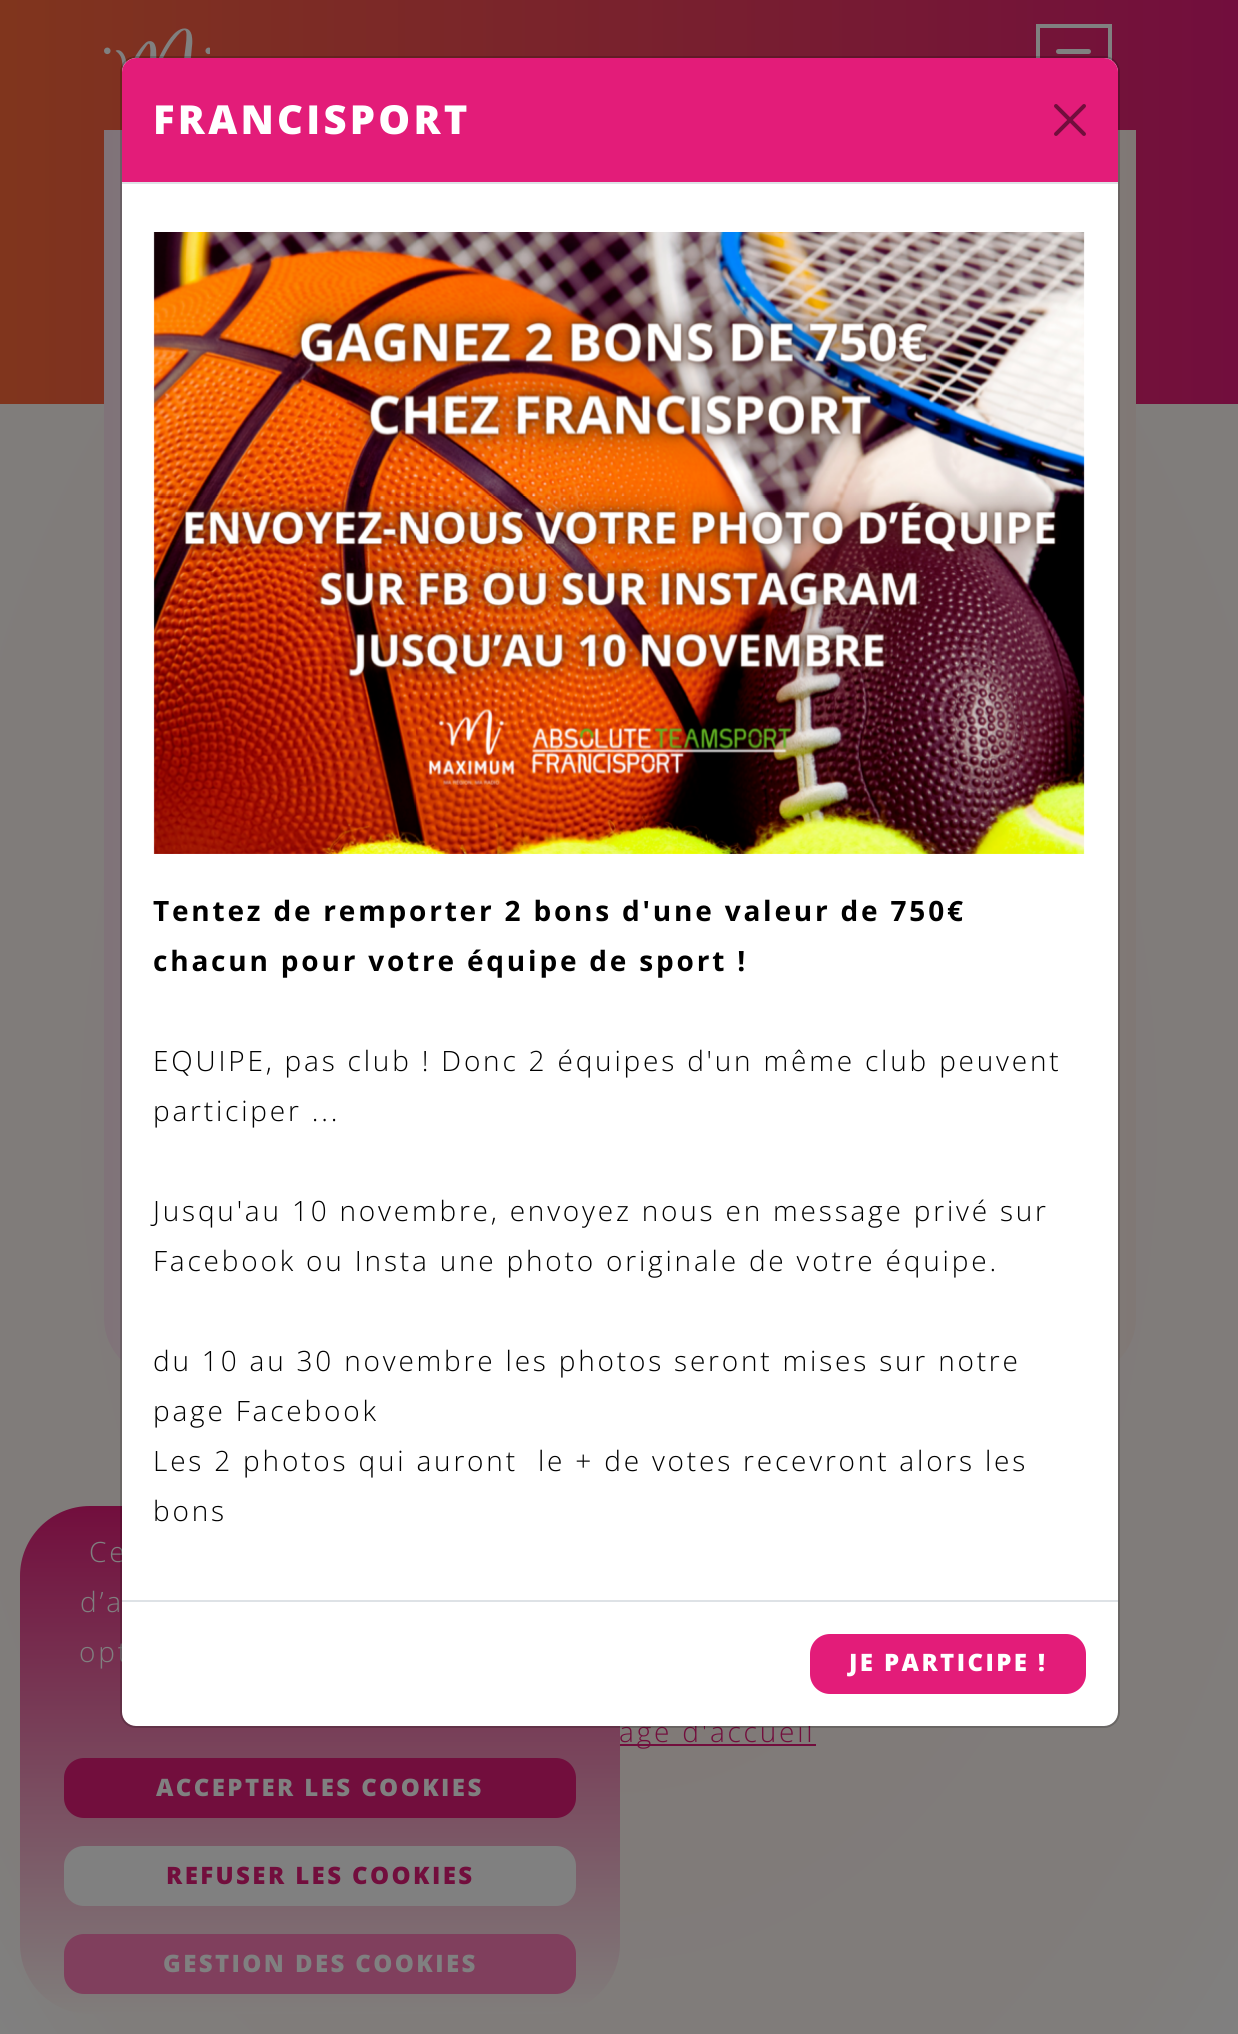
import math
import cairo

surface = cairo.ImageSurface(cairo.FORMAT_RGB24, 1238, 2034)
ctx = cairo.Context(surface)
options = cairo.FontOptions()
options.set_hint_metrics(cairo.HINT_METRICS_OFF)
options.set_hint_style(cairo.HINT_STYLE_NONE)
ctx.set_font_options(options)
ctx.set_miter_limit(4)


def spaced_text(x, y, s, letter, word):
    ctx.move_to(x, y)
    for ch in s:
        ctx.show_text(ch)
        ctx.rel_move_to(letter + word * (ch == ' '), 0)


def round_rect(x, y, w, h, r):
    ctx.new_sub_path()
    for i, (u, v) in enumerate([(x + w - r, y + h - r), (x + r, y + h - r), (x + r, y + r), (x + w - r, y + r)]):
        ctx.arc(u, v, r, i * math.pi / 2, (i + 1) * math.pi / 2)
    ctx.close_path()


def picture(path, x, y, w, h):
    ctx.save()
    ctx.set_source_surface(cairo.ImageSurface.create_from_png(path), x, y)
    ctx.rectangle(x, y, w, h)
    ctx.fill()
    ctx.restore()


ctx.set_source_rgb(1, 1, 1)
ctx.paint()
gradient = cairo.LinearGradient(0, 65, 1238, 65)
gradient.add_color_stop_rgba(0, 0.502, 0.208, 0.114, 1)
gradient.add_color_stop_rgba(1, 0.447, 0.055, 0.239, 1)
ctx.set_source(gradient)
ctx.rectangle(0, 0, 1238, 130)
ctx.fill()
picture("img1.png", 104, 28, 106, 42)
ctx.rectangle(1038, 26, 72, 76)
ctx.set_source_rgb(0.502, 0.502, 0.502)
ctx.set_line_width(4)
ctx.stroke()
picture("img2.png", 1056, 49, 35, 5)
gradient = cairo.RadialGradient(0, 0, 0, 0, 0, 1)
gradient.set_matrix(cairo.Matrix(1 / 867, 0, 0, 1 / 1330, -1 * 619 / 867, -1 * 1126 / 1330))
gradient.add_color_stop_rgba(0, 0.502, 0.443, 0.412, 1)
gradient.add_color_stop_rgba(0.52, 0.502, 0.482, 0.475, 1)
gradient.add_color_stop_rgba(0.88, 0.502, 0.49, 0.482, 1)
gradient.add_color_stop_rgba(1, 0.502, 0.502, 0.502, 1)
ctx.set_source(gradient)
ctx.rectangle(0, 404, 1238, 1630)
ctx.fill()
ctx.set_source_rgb(0.447, 0.055, 0.239)
ctx.rectangle(620, 1744, 196, 2)
ctx.fill()
ctx.select_font_face("Open Sans Light")
ctx.set_font_size(28)
spaced_text(619, 1742, "age d'accueil", 2.8, 0)
gradient = cairo.LinearGradient(0, 267, 1238, 267)
gradient.add_color_stop_rgba(0, 0.502, 0.208, 0.114, 1)
gradient.add_color_stop_rgba(1, 0.447, 0.055, 0.239, 1)
ctx.set_source(gradient)
ctx.rectangle(0, 130, 1238, 274)
ctx.fill()
gradient = cairo.LinearGradient(104, 754, 1136, 754)
gradient.add_color_stop_rgba(0, 0.502, 0.451, 0.475, 1)
gradient.add_color_stop_rgba(0.24, 0.502, 0.502, 0.502, 1)
gradient.add_color_stop_rgba(0.8, 0.502, 0.502, 0.502, 1)
gradient.add_color_stop_rgba(1, 0.502, 0.471, 0.459, 1)
ctx.set_source(gradient)
ctx.new_path()
ctx.move_to(104, 130)
ctx.line_to(1136, 130)
ctx.line_to(1136, 1318)
ctx.curve_to(1136, 1351, 1109, 1378, 1076, 1378)
ctx.line_to(164, 1378)
ctx.curve_to(131, 1378, 104, 1351, 104, 1318)
ctx.close_path()
ctx.fill()
gradient = cairo.LinearGradient(320, 1506, 320, 2014)
gradient.add_color_stop_rgba(0, 0.447, 0.055, 0.239, 1)
gradient.add_color_stop_rgba(1, 0.502, 0.49, 0.482, 1)
ctx.set_source(gradient)
round_rect(20, 1506, 600, 508, 70)
ctx.fill()
ctx.set_source_rgb(0.502, 0.502, 0.502)
spaced_text(89, 1562, "Ce", 2.8, 0)
spaced_text(79, 1662, "opt", 2.8, 0)
ctx.set_source_rgb(1, 1, 1)
round_rect(122, 58, 996, 1668, 14)
ctx.fill()
round_rect(121, 57, 998, 1670, 15)
ctx.set_source_rgba(0, 0, 0, 0.18)
ctx.set_line_width(2)
ctx.stroke()
ctx.set_source_rgb(0.89, 0.11, 0.475)
ctx.new_path()
ctx.move_to(136, 58)
ctx.line_to(1104, 58)
ctx.curve_to(1111.5, 58, 1118, 64.5, 1118, 72)
ctx.line_to(1118, 184)
ctx.line_to(122, 184)
ctx.line_to(122, 72)
ctx.curve_to(122, 64.5, 128.5, 58, 136, 58)
ctx.close_path()
ctx.fill()
ctx.set_source_rgb(0.871, 0.886, 0.902)
ctx.rectangle(122, 182, 996, 2)
ctx.fill()
ctx.select_font_face("Open Sans ExtraBold")
ctx.set_font_size(40)
ctx.set_source_rgb(1, 1, 1)
spaced_text(153, 134, "FRANCISPORT", 3.25, 0)
picture("img3.png", 1054, 104, 32, 32)
picture("img4.png", 153, 232, 932, 622)
ctx.select_font_face("Open Sans", cairo.FONT_SLANT_NORMAL, cairo.FONT_WEIGHT_BOLD)
ctx.set_font_size(28)
ctx.set_source_rgb(0, 0, 0)
spaced_text(153, 921, "Tentez de remporter 2 bons d'une valeur de 750€", 2.8, 0)
spaced_text(153, 971, "chacun pour votre équipe de sport !", 2.8, 0)
ctx.select_font_face("Open Sans Light")
spaced_text(153, 1071, "EQUIPE, pas club ! Donc 2 équipes d'un même club peuvent", 2.8, 0)
spaced_text(153, 1121, "participer ...", 2.8, 0)
spaced_text(153, 1221, "Jusqu'au 10 novembre, envoyez nous en message privé sur", 2.8, 0)
spaced_text(153, 1271, "Facebook ou Insta une photo originale de votre équipe.", 2.8, 0)
spaced_text(153, 1371, "du 10 au 30 novembre les photos seront mises sur notre", 2.8, 0)
spaced_text(153, 1421, "page Facebook", 2.8, 0)
spaced_text(153, 1471, "Les 2 photos qui auront  le + de votes recevront alors les", 2.8, 0)
spaced_text(153, 1521, "bons", 2.8, 0)
ctx.set_source_rgb(0.871, 0.886, 0.902)
ctx.rectangle(122, 1600, 996, 2)
ctx.fill()
ctx.set_source_rgb(0.89, 0.11, 0.475)
round_rect(811, 1635, 274, 58, 19)
ctx.fill_preserve()
ctx.stroke()
ctx.select_font_face("Open Sans ExtraBold")
ctx.set_font_size(24)
ctx.set_source_rgb(1, 1, 1)
spaced_text(849, 1671, "JE PARTICIPE !", 2.4, 0)
ctx.select_font_face("Open Sans Light")
ctx.set_font_size(28)
ctx.set_source_rgb(0.502, 0.502, 0.502)
spaced_text(80, 1612, "d’a", 2.8, 0)
ctx.set_source_rgb(0.447, 0.055, 0.239)
round_rect(65, 1759, 510, 58, 19)
ctx.fill_preserve()
ctx.stroke()
ctx.select_font_face("Open Sans ExtraBold")
ctx.set_font_size(24)
ctx.set_source_rgb(0.502, 0.502, 0.502)
spaced_text(156, 1796, "ACCEPTER LES COOKIES", 2.4, 0)
round_rect(65, 1847, 510, 58, 19)
ctx.fill_preserve()
ctx.stroke()
ctx.set_source_rgb(0.447, 0.055, 0.239)
spaced_text(166, 1884, "REFUSER LES COOKIES", 2.4, 0)
ctx.set_source_rgb(0.502, 0.247, 0.365)
round_rect(65, 1935, 510, 58, 19)
ctx.fill_preserve()
ctx.stroke()
ctx.set_source_rgb(0.502, 0.502, 0.502)
spaced_text(163, 1972, "GESTION DES COOKIES", 2.4, 0)
surface.write_to_png("page.png")
